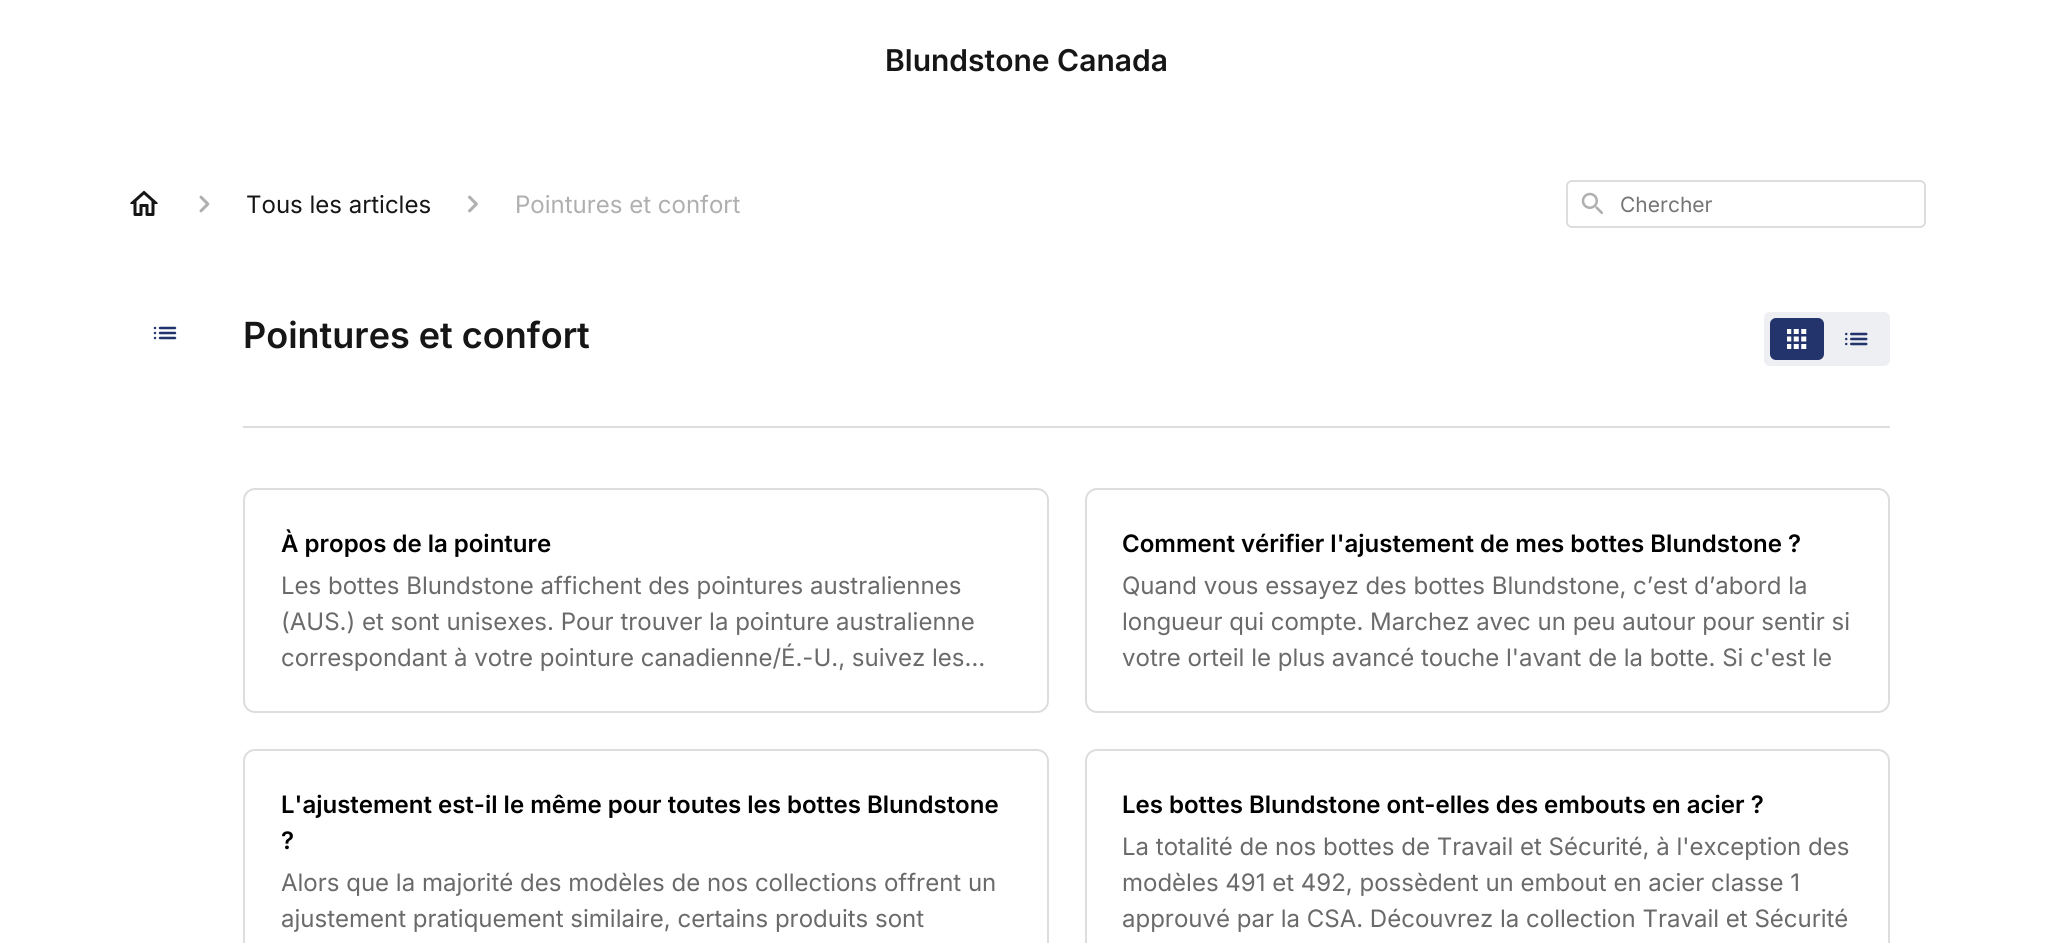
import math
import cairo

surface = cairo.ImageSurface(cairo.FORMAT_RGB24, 2051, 943)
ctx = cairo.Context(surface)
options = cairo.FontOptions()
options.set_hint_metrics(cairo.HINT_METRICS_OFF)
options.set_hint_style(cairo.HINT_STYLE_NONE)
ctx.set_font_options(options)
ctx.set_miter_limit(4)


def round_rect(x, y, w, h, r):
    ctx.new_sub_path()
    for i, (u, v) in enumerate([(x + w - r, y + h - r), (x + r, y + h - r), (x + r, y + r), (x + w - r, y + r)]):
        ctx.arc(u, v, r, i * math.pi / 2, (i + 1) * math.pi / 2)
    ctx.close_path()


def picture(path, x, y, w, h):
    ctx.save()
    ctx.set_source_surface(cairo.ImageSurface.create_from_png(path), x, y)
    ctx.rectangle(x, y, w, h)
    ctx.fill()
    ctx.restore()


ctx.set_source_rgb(1, 1, 1)
ctx.paint()
ctx.select_font_face("Inter SemiBold")
ctx.set_font_size(30)
ctx.set_source_rgb(0.086, 0.086, 0.086)
ctx.move_to(885, 71)
ctx.show_text("Blundstone Canada")
picture("img1.png", 130, 190, 28, 26)
picture("img2.png", 199, 195, 11, 18)
ctx.select_font_face("Inter")
ctx.set_font_size(24)
ctx.move_to(246, 213)
ctx.show_text("Tous les articles")
picture("img3.png", 468, 195, 10, 18)
ctx.set_source_rgb(0.686, 0.686, 0.686)
ctx.move_to(515, 213)
ctx.show_text("Pointures et confort")
round_rect(1567, 181, 358, 46, 5)
ctx.set_source_rgb(0.867, 0.867, 0.867)
ctx.stroke()
picture("img4.png", 1581, 192, 22, 22)
ctx.set_font_size(21)
ctx.set_source_rgb(0.459, 0.459, 0.459)
ctx.move_to(1620, 212)
ctx.show_text("Chercher")
picture("img5.png", 153, 326, 24, 14)
ctx.set_source_rgb(0.867, 0.867, 0.867)
ctx.rectangle(243, 426, 1647, 2)
ctx.fill()
ctx.select_font_face("Inter SemiBold")
ctx.set_font_size(36)
ctx.set_source_rgb(0.086, 0.086, 0.086)
ctx.move_to(243, 348)
ctx.show_text("Pointures et confort")
ctx.set_source_rgb(0.929, 0.937, 0.953)
round_rect(1764, 312, 126, 54, 6)
ctx.fill()
ctx.set_source_rgb(0.137, 0.204, 0.427)
round_rect(1770, 318, 54, 42, 6)
ctx.fill()
picture("img6.png", 1787, 329, 81, 20)
round_rect(244, 489, 804, 223, 11)
ctx.set_source_rgb(0.867, 0.867, 0.867)
ctx.stroke()
ctx.set_font_size(24)
ctx.set_source_rgb(0, 0, 0)
ctx.move_to(281, 552)
ctx.show_text("À propos de la pointure")
ctx.select_font_face("Inter")
ctx.set_source_rgb(0.416, 0.416, 0.416)
ctx.move_to(281, 594)
ctx.show_text("Les bottes Blundstone affichent des pointures australiennes")
ctx.move_to(281, 630)
ctx.show_text("(AUS.) et sont unisexes. Pour trouver la pointure australienne")
ctx.move_to(281, 666)
ctx.show_text("correspondant à votre pointure canadienne/É.-U., suivez les…")
round_rect(1086, 489, 803, 223, 11)
ctx.set_source_rgb(0.867, 0.867, 0.867)
ctx.stroke()
ctx.select_font_face("Inter SemiBold")
ctx.set_source_rgb(0, 0, 0)
ctx.move_to(1122, 552)
ctx.show_text("Comment vérifier l'ajustement de mes bottes Blundstone ?")
ctx.select_font_face("Inter")
ctx.set_source_rgb(0.416, 0.416, 0.416)
ctx.move_to(1122, 594)
ctx.show_text("Quand vous essayez des bottes Blundstone, c’est d’abord la")
ctx.move_to(1122, 630)
ctx.show_text("longueur qui compte. Marchez avec un peu autour pour sentir si")
ctx.move_to(1122, 666)
ctx.show_text("votre orteil le plus avancé touche l'avant de la botte. Si c'est le")
round_rect(244, 750, 804, 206, 11)
ctx.set_source_rgb(0.867, 0.867, 0.867)
ctx.stroke()
ctx.select_font_face("Inter SemiBold")
ctx.set_source_rgb(0, 0, 0)
ctx.move_to(281, 813)
ctx.show_text("L'ajustement est-il le même pour toutes les bottes Blundstone")
ctx.move_to(281, 849)
ctx.show_text("?")
ctx.select_font_face("Inter")
ctx.set_source_rgb(0.416, 0.416, 0.416)
ctx.move_to(281, 891)
ctx.show_text("Alors que la majorité des modèles de nos collections offrent un")
ctx.move_to(281, 927)
ctx.show_text("ajustement pratiquement similaire, certains produits sont")
round_rect(1086, 750, 803, 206, 11)
ctx.set_source_rgb(0.867, 0.867, 0.867)
ctx.stroke()
ctx.select_font_face("Inter SemiBold")
ctx.set_source_rgb(0, 0, 0)
ctx.move_to(1122, 813)
ctx.show_text("Les bottes Blundstone ont-elles des embouts en acier ?")
ctx.select_font_face("Inter")
ctx.set_source_rgb(0.416, 0.416, 0.416)
ctx.move_to(1122, 855)
ctx.show_text("La totalité de nos bottes de Travail et Sécurité, à l'exception des")
ctx.move_to(1122, 891)
ctx.show_text("modèles 491 et 492, possèdent un embout en acier classe 1")
ctx.move_to(1122, 927)
ctx.show_text("approuvé par la CSA. Découvrez la collection Travail et Sécurité")
surface.write_to_png("page.png")
